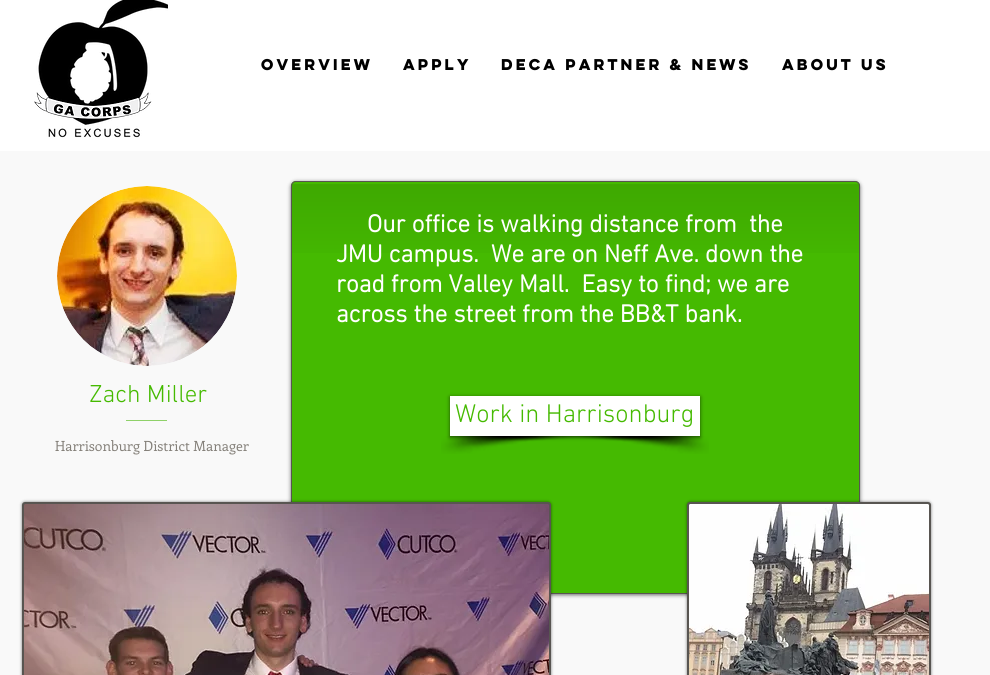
import math
import cairo

surface = cairo.ImageSurface(cairo.FORMAT_RGB24, 990, 675)
ctx = cairo.Context(surface)
options = cairo.FontOptions()
options.set_hint_metrics(cairo.HINT_METRICS_OFF)
options.set_hint_style(cairo.HINT_STYLE_NONE)
ctx.set_font_options(options)
ctx.set_miter_limit(4)


def round_rect(x, y, w, h, r):
    ctx.new_sub_path()
    for i, (u, v) in enumerate([(x + w - r, y + h - r), (x + r, y + h - r), (x + r, y + r), (x + w - r, y + r)]):
        ctx.arc(u, v, r, i * math.pi / 2, (i + 1) * math.pi / 2)
    ctx.close_path()


def shadow(x, y, w, h, r, blur, alpha):
    ctx.push_group_with_content(cairo.CONTENT_ALPHA)
    ctx.set_operator(cairo.OPERATOR_SOURCE)
    for i in range(15, -16, -2):
        e = blur * i / 6
        if min(w, h) + 2 * e > 0:
            ctx.set_source_rgba(0, 0, 0, alpha * math.erfc((i - 1) / 8.5) / 2)
            round_rect(x - e, y - e, w + 2 * e, h + 2 * e, max(0, min(r + e + blur * .6, min(w, h) / 2 + e)))
            ctx.fill()
    ctx.mask(ctx.pop_group())


def picture(path, x, y, w, h):
    ctx.save()
    ctx.set_source_surface(cairo.ImageSurface.create_from_png(path), x, y)
    ctx.rectangle(x, y, w, h)
    ctx.fill()
    ctx.restore()


ctx.set_source_rgb(0.973, 0.973, 0.973)
ctx.paint()
ctx.set_source_rgb(1, 1, 1)
ctx.rectangle(0, 0, 990, 151)
ctx.fill()
picture("img1.png", 34, 0, 134, 138)
ctx.select_font_face("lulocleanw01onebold", cairo.FONT_SLANT_NORMAL, cairo.FONT_WEIGHT_BOLD)
ctx.set_font_size(14)
ctx.set_source_rgb(0, 0, 0)
ctx.move_to(261, 70)
ctx.show_text("Overview")
ctx.move_to(403, 70)
ctx.show_text("Apply")
ctx.move_to(501, 70)
ctx.show_text("DECA Partner & News")
ctx.move_to(782, 70)
ctx.show_text("About us")
picture("img2.png", 57, 186, 180, 180)
ctx.set_source_rgb(0, 0, 0)
shadow(291, 182, 569, 413, 5, 2, 0.6)
ctx.set_source_rgb(0.271, 0.729, 0.004)
round_rect(291, 181, 569, 413, 5)
ctx.fill()
picture("img3.png", 291, 184, 569, 69)
round_rect(291.5, 181.5, 568, 412, 4.5)
ctx.set_source_rgb(0.345, 0.333, 0.318)
ctx.set_line_width(1)
ctx.stroke()
ctx.select_font_face("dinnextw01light", cairo.FONT_SLANT_NORMAL, cairo.FONT_WEIGHT_BOLD)
ctx.set_font_size(25)
ctx.set_source_rgb(1, 1, 1)
ctx.move_to(367, 232)
ctx.show_text("Our office is walking distance from  the")
ctx.move_to(336, 262)
ctx.show_text("JMU campus.  We are on Neff Ave. down the")
ctx.move_to(336, 292)
ctx.show_text("road from Valley Mall.  Easy to find; we are")
ctx.move_to(336, 322)
ctx.show_text("across the street from the BB&T bank.")
picture("img4.png", 441, 436, 154, 18)
picture("img5.png", 562, 436, 147, 18)
ctx.set_source_rgb(0, 0, 0)
shadow(450, 397, 250, 40, 0, 2, 0.6)
ctx.set_source_rgb(1, 1, 1)
ctx.rectangle(450, 396, 250, 40)
ctx.fill()
ctx.select_font_face("dinnextw01light Light")
ctx.set_font_size(26)
ctx.set_source_rgb(0.271, 0.729, 0.004)
ctx.move_to(455, 422)
ctx.show_text("Work in Harrisonburg")
ctx.set_font_size(25)
ctx.move_to(89, 402)
ctx.show_text("Zach Miller")
ctx.set_source_rgb(0.561, 0.82, 0.412)
ctx.rectangle(126, 420, 41, 1)
ctx.fill()
ctx.select_font_face("Enriqueta")
ctx.set_font_size(14)
ctx.set_source_rgb(0.518, 0.502, 0.475)
ctx.move_to(55, 451)
ctx.show_text("Harrisonburg District Manager")
ctx.set_source_rgb(0, 0, 0)
shadow(22, 502, 529, 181, 3, 1.5, 0.5)
ctx.set_source_rgb(0.345, 0.333, 0.318)
round_rect(23, 503, 527, 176, 2)
ctx.fill_preserve()
ctx.set_line_width(2)
ctx.stroke()
picture("img6.png", 24, 504, 525, 171)
ctx.set_source_rgb(0, 0, 0)
shadow(687, 502, 244, 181, 3, 1.5, 0.5)
ctx.set_source_rgb(0.345, 0.333, 0.318)
round_rect(688, 503, 242, 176, 2)
ctx.fill_preserve()
ctx.stroke()
picture("img7.png", 689, 504, 240, 171)
surface.write_to_png("page.png")
